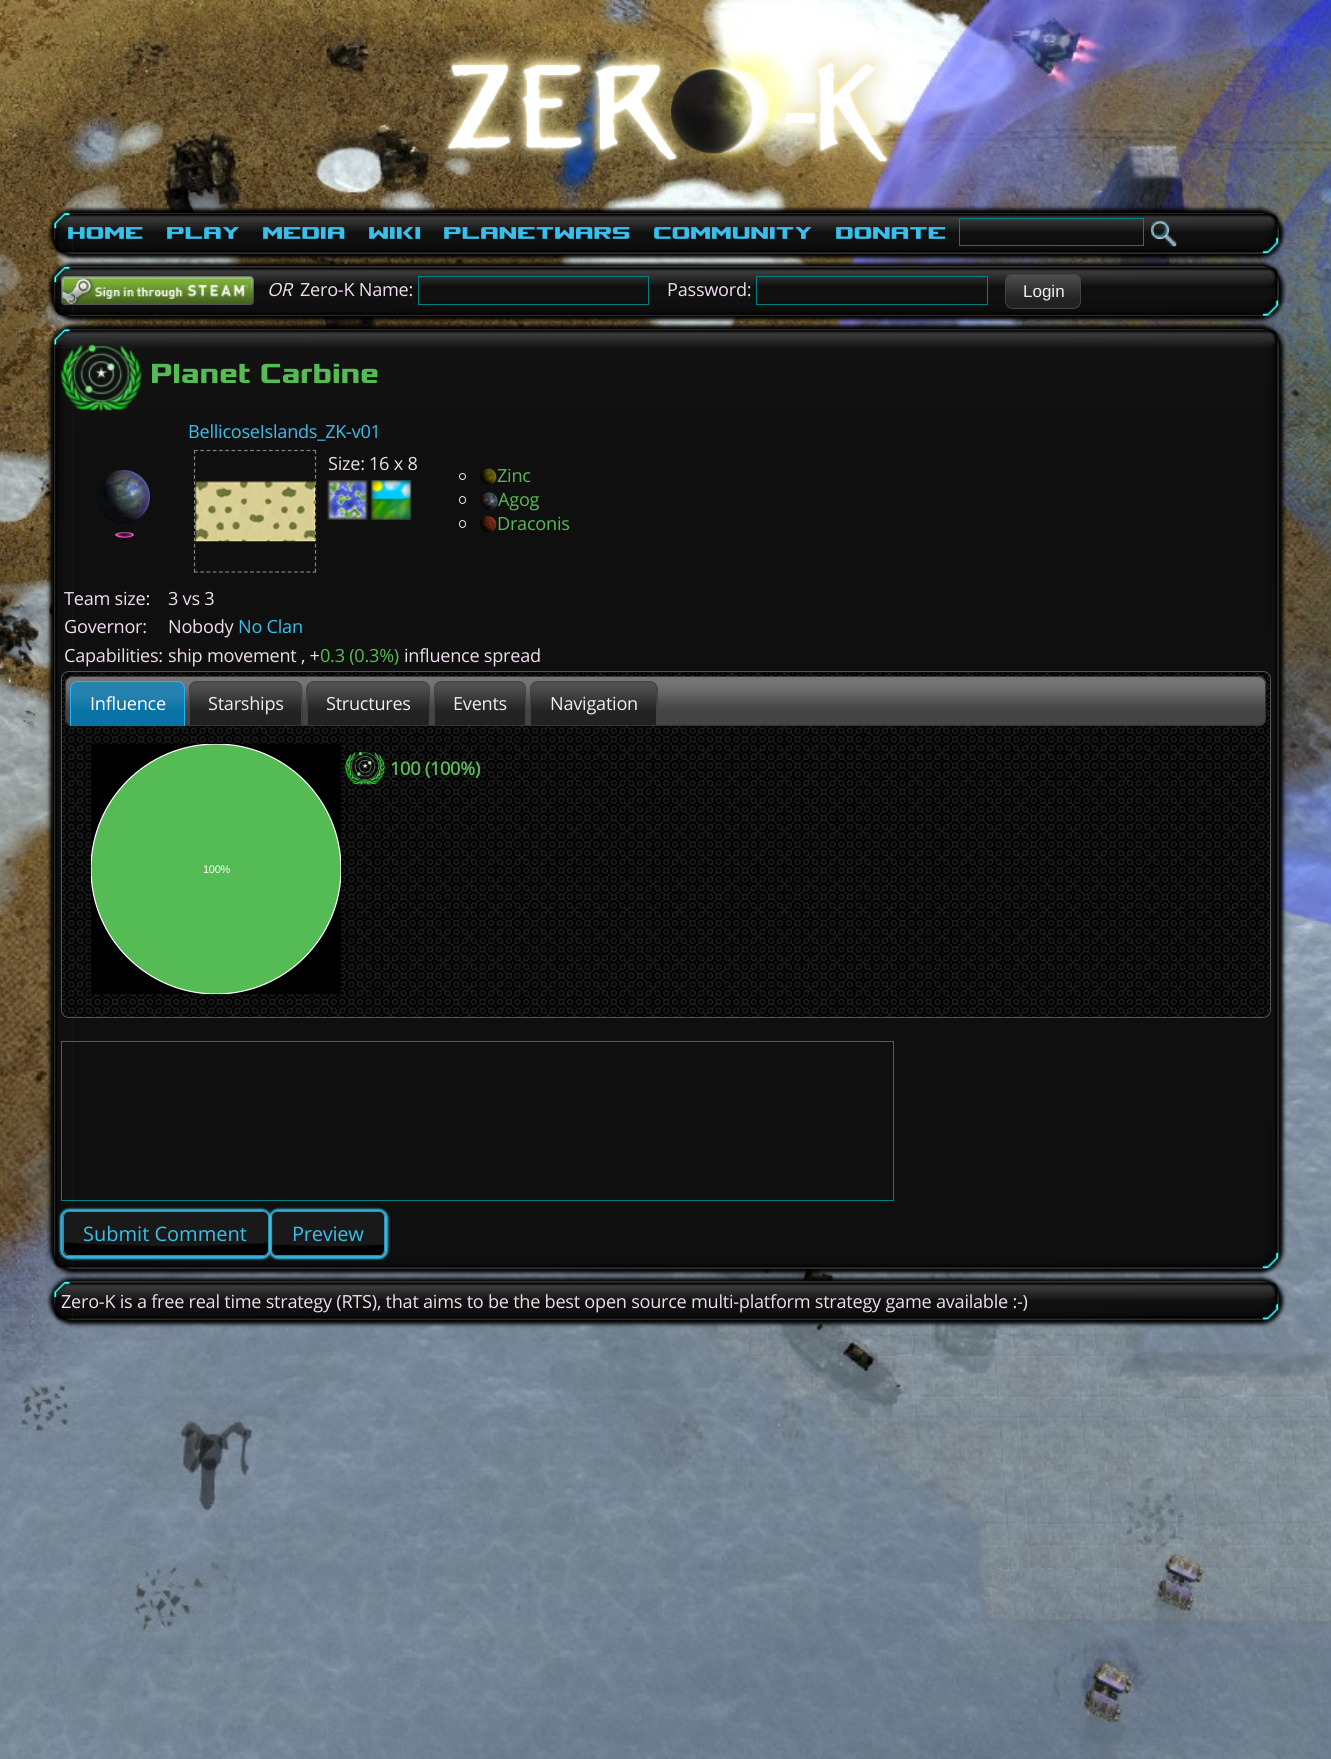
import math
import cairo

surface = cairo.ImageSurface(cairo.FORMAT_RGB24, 1331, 1759)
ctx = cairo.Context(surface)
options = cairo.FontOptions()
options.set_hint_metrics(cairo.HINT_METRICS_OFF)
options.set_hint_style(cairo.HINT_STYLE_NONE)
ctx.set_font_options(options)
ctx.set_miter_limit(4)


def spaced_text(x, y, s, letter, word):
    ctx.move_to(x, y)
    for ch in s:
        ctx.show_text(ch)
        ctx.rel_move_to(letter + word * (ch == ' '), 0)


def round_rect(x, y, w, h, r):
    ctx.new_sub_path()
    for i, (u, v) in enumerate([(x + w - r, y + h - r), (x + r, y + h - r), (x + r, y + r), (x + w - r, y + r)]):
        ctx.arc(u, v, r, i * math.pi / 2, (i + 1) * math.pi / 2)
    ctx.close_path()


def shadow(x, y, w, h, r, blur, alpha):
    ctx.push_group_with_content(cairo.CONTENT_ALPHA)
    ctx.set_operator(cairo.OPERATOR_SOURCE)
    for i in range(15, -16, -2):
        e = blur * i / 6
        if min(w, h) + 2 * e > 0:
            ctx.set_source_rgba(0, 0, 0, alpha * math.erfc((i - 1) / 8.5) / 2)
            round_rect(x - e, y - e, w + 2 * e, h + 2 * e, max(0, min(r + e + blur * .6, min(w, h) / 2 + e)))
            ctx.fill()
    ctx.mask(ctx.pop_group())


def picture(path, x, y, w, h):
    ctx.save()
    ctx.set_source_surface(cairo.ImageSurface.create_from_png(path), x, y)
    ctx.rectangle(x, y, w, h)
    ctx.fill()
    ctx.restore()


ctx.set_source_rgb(1, 1, 1)
ctx.paint()
picture("img1.png", 0, 0, 1331, 1759)
picture("img2.png", 436, 42, 466, 132)
ctx.set_source_rgb(0, 0, 0)
shadow(50, 209, 1233, 49, 23, 2, 1)
ctx.set_source_rgb(0.2, 0.2, 0.2)
round_rect(54, 213, 1225, 41, 19)
ctx.fill()
picture("img3.png", 53, 212, 1226, 42)
ctx.select_font_face("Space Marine")
ctx.set_font_size(18.75)
ctx.set_source_rgb(0.22, 0.749, 0.925)
spaced_text(67, 240, "Home", -0.25, 0)
spaced_text(166, 240, "Play", -0.25, 0)
spaced_text(262, 240, "Media", -0.25, 0)
spaced_text(368, 240, "Wiki", -0.25, 0)
spaced_text(443, 240, "PlanetWars", -0.25, 0)
spaced_text(653, 240, "Community", -0.25, 0)
spaced_text(835, 240, "Donate", -0.25, 0)
ctx.rectangle(959.5, 218.5, 184, 27)
ctx.set_source_rgb(0, 0.502, 0.502)
ctx.set_line_width(1)
ctx.stroke()
picture("img4.png", 1151, 221, 26, 26)
ctx.set_source_rgb(0, 0, 0)
shadow(50, 263, 1233, 57, 23, 2, 1)
ctx.set_source_rgb(0.2, 0.2, 0.2)
round_rect(54, 266, 1225, 50, 19)
ctx.fill()
picture("img5.png", 53, 266, 1226, 51)
picture("img6.png", 61, 276, 193, 29)
ctx.select_font_face("Open Sans", cairo.FONT_SLANT_ITALIC)
ctx.set_font_size(18.12)
ctx.set_source_rgb(0.933, 0.867, 0.933)
spaced_text(267, 296, "OR", -0.25, 0)
ctx.select_font_face("Open Sans")
spaced_text(300, 296, "Zero-K Name:", -0.25, 0)
ctx.rectangle(418.5, 276.5, 230, 28)
ctx.set_source_rgb(0, 0.502, 0.502)
ctx.stroke()
ctx.set_source_rgb(0.933, 0.867, 0.933)
spaced_text(667, 296, "Password:", -0.25, 0)
ctx.rectangle(756.5, 276.5, 231, 28)
ctx.set_source_rgb(0, 0.502, 0.502)
ctx.stroke()
picture("img7.png", 1005, 274, 76, 34)
round_rect(1005.5, 274.5, 75, 34, 7.5)
ctx.set_source_rgb(0.267, 0.267, 0.267)
ctx.stroke()
ctx.select_font_face("Liberation Sans")
ctx.set_font_size(17)
ctx.set_source_rgb(0.933, 0.933, 0.933)
ctx.move_to(1023, 297)
ctx.show_text("Login")
ctx.set_source_rgb(0, 0, 0)
shadow(50, 325, 1233, 948, 23, 2, 1)
ctx.set_source_rgb(0.2, 0.2, 0.2)
round_rect(54, 329, 1225, 940, 19)
ctx.fill()
picture("img8.png", 53, 328, 1226, 941)
picture("img9.png", 61, 344, 81, 68)
ctx.select_font_face("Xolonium", cairo.FONT_SLANT_NORMAL, cairo.FONT_WEIGHT_BOLD)
ctx.set_font_size(29)
ctx.set_source_rgb(0.333, 0.733, 0.333)
spaced_text(150, 383, "Planet Carbine", -0.25, 0)
ctx.select_font_face("Open Sans")
ctx.set_font_size(18.12)
ctx.set_source_rgb(0.22, 0.749, 0.925)
spaced_text(188, 438, "BellicoseIslands_ZK-v01", -0.25, 0)
ctx.new_path()
ctx.move_to(194, 450.5)
ctx.line_to(316, 450.5)
ctx.set_source_rgb(0.502, 0.502, 0.502)
ctx.set_line_width(1.2)
ctx.set_dash([3.75, 2.5])
ctx.stroke()
ctx.new_path()
ctx.move_to(315.5, 450)
ctx.line_to(315.5, 572.5)
ctx.stroke()
ctx.new_path()
ctx.move_to(194, 572)
ctx.line_to(316, 572)
ctx.stroke()
ctx.new_path()
ctx.move_to(194.5, 450)
ctx.line_to(194.5, 572.5)
ctx.stroke()
picture("img10.png", 195, 481, 120, 61)
ctx.set_source_rgb(0.933, 0.867, 0.933)
spaced_text(328, 470, "Size:", -0.25, 0)
spaced_text(369, 470, "16 x 8", -0.25, 0)
picture("img11.png", 327, 480, 41, 40)
picture("img12.png", 371, 480, 41, 40)
picture("img13.png", 97, 470, 53, 54)
picture("img14.png", 115, 531, 19, 8)
ctx.arc(462.5, 476.5, 3, 0, 2 * math.pi)
ctx.set_line_width(1)
ctx.set_dash([])
ctx.stroke()
picture("img15.png", 480, 468, 17, 17)
ctx.set_source_rgb(0.333, 0.733, 0.333)
spaced_text(497, 482, "Zinc", -0.25, 0)
round_rect(459.5, 496.5, 6, 7, 3)
ctx.set_source_rgb(0.933, 0.867, 0.933)
ctx.stroke()
picture("img16.png", 480, 492, 18, 18)
ctx.set_source_rgb(0.333, 0.733, 0.333)
spaced_text(498, 506, "Agog", -0.25, 0)
round_rect(459.5, 520.5, 6, 7, 3)
ctx.set_source_rgb(0.933, 0.867, 0.933)
ctx.stroke()
picture("img17.png", 480, 516, 17, 17)
ctx.set_source_rgb(0.333, 0.733, 0.333)
spaced_text(497, 530, "Draconis", -0.25, 0)
ctx.set_source_rgb(0.933, 0.867, 0.933)
spaced_text(64, 605, "Team size:", -0.25, 0)
spaced_text(168, 605, "3 vs 3", -0.25, 0)
spaced_text(64, 633, "Governor:", -0.25, 0)
spaced_text(168, 633, "Nobody", -0.25, 0)
ctx.set_source_rgb(0.22, 0.749, 0.925)
spaced_text(238, 633, "No Clan", -0.25, 0)
ctx.set_source_rgb(0.933, 0.867, 0.933)
spaced_text(64, 662, "Capabilities:", -0.25, 0)
spaced_text(168, 662, "ship movement , +", -0.25, 0)
ctx.set_source_rgb(0.333, 0.733, 0.333)
spaced_text(320, 662, "0.3 (0.3%)", -0.25, 0)
ctx.set_source_rgb(0.933, 0.867, 0.933)
spaced_text(404, 662, "influence spread", -0.25, 0)
picture("img18.png", 61, 671, 1210, 347)
round_rect(61.5, 671.5, 1209, 346, 7.5)
ctx.set_source_rgb(0.333, 0.333, 0.333)
ctx.stroke()
picture("img19.png", 65, 676, 1202, 51)
round_rect(65.5, 676.5, 1200, 49, 7.5)
ctx.set_source_rgb(0.2, 0.2, 0.2)
ctx.stroke()
picture("img20.png", 70, 681, 115, 46)
ctx.set_source_rgb(0.149, 0.702, 0.969)
ctx.set_fill_rule(cairo.FILL_RULE_EVEN_ODD)
ctx.new_path()
ctx.move_to(78, 681)
ctx.line_to(178, 681)
ctx.curve_to(182, 681, 185, 685, 185, 689)
ctx.line_to(185, 726)
ctx.line_to(70, 726)
ctx.line_to(70, 689)
ctx.curve_to(70, 685, 73, 681, 78, 681)
ctx.close_path()
ctx.move_to(78, 682)
ctx.line_to(178, 682)
ctx.curve_to(181, 682, 184, 685, 184, 689)
ctx.line_to(184, 726)
ctx.line_to(71, 726)
ctx.line_to(71, 689)
ctx.curve_to(71, 685, 74, 682, 78, 682)
ctx.close_path()
ctx.fill()
ctx.set_source_rgb(1, 1, 1)
spaced_text(90, 710, "Influence", -0.25, 0)
picture("img21.png", 189, 681, 114, 44)
ctx.set_source_rgb(0.267, 0.267, 0.267)
ctx.new_path()
ctx.move_to(196, 681)
ctx.line_to(295, 681)
ctx.curve_to(299, 681, 302, 685, 302, 689)
ctx.line_to(302, 725)
ctx.line_to(189, 725)
ctx.line_to(189, 689)
ctx.curve_to(189, 685, 192, 681, 196, 681)
ctx.close_path()
ctx.move_to(196, 682)
ctx.line_to(295, 682)
ctx.curve_to(298, 682, 301, 685, 301, 689)
ctx.line_to(301, 725)
ctx.line_to(190, 725)
ctx.line_to(190, 689)
ctx.curve_to(190, 685, 193, 682, 196, 682)
ctx.close_path()
ctx.fill()
ctx.set_source_rgb(0.933, 0.933, 0.933)
spaced_text(208, 710, "Starships", -0.25, 0)
picture("img22.png", 306, 681, 124, 44)
ctx.set_source_rgb(0.267, 0.267, 0.267)
ctx.new_path()
ctx.move_to(314, 681)
ctx.line_to(422, 681)
ctx.curve_to(427, 681, 430, 685, 430, 689)
ctx.line_to(430, 725)
ctx.line_to(306, 725)
ctx.line_to(306, 689)
ctx.curve_to(306, 685, 310, 681, 314, 681)
ctx.close_path()
ctx.move_to(314, 682)
ctx.line_to(422, 682)
ctx.curve_to(426, 682, 429, 685, 429, 689)
ctx.line_to(429, 725)
ctx.line_to(308, 725)
ctx.line_to(308, 689)
ctx.curve_to(308, 685, 310, 682, 314, 682)
ctx.close_path()
ctx.fill()
ctx.set_source_rgb(0.933, 0.933, 0.933)
spaced_text(326, 710, "Structures", -0.25, 0)
picture("img23.png", 434, 681, 92, 44)
ctx.set_source_rgb(0.267, 0.267, 0.267)
ctx.new_path()
ctx.move_to(441, 681)
ctx.line_to(519, 681)
ctx.curve_to(523, 681, 526, 685, 526, 689)
ctx.line_to(526, 725)
ctx.line_to(434, 725)
ctx.line_to(434, 689)
ctx.curve_to(434, 685, 437, 681, 441, 681)
ctx.close_path()
ctx.move_to(441, 682)
ctx.line_to(519, 682)
ctx.curve_to(522, 682, 525, 685, 525, 689)
ctx.line_to(525, 725)
ctx.line_to(435, 725)
ctx.line_to(435, 689)
ctx.curve_to(435, 685, 438, 682, 441, 682)
ctx.close_path()
ctx.fill()
ctx.set_source_rgb(0.933, 0.933, 0.933)
spaced_text(453, 710, "Events", -0.25, 0)
picture("img24.png", 530, 681, 128, 44)
ctx.set_source_rgb(0.267, 0.267, 0.267)
ctx.new_path()
ctx.move_to(538, 681)
ctx.line_to(650, 681)
ctx.curve_to(654, 681, 658, 685, 658, 689)
ctx.line_to(658, 725)
ctx.line_to(530, 725)
ctx.line_to(530, 689)
ctx.curve_to(530, 685, 533, 681, 538, 681)
ctx.close_path()
ctx.move_to(538, 682)
ctx.line_to(650, 682)
ctx.curve_to(653, 682, 656, 685, 656, 689)
ctx.line_to(656, 725)
ctx.line_to(531, 725)
ctx.line_to(531, 689)
ctx.curve_to(531, 685, 534, 682, 538, 682)
ctx.close_path()
ctx.fill()
ctx.set_source_rgb(0.933, 0.933, 0.933)
spaced_text(550, 710, "Navigation", -0.25, 0)
picture("img25.png", 345, 751, 40, 34)
ctx.select_font_face("Open Sans", cairo.FONT_SLANT_NORMAL, cairo.FONT_WEIGHT_BOLD)
ctx.set_source_rgb(0.333, 0.733, 0.333)
spaced_text(390, 775, "100 (100%)", -0.25, 0)
ctx.set_source_rgb(0, 0, 0)
ctx.rectangle(91, 744, 250, 250)
ctx.fill()
ctx.set_source_rgb(0.333, 0.733, 0.333)
ctx.arc(216, 869, 125, 0, 2 * math.pi)
ctx.fill()
ctx.save()
ctx.set_fill_rule(cairo.FILL_RULE_WINDING)
ctx.rectangle(91, 744, 250, 250)
ctx.clip()
ctx.arc(216, 869, 125, 0, 2 * math.pi)
ctx.set_source_rgb(1, 1, 1)
ctx.set_line_width(1.2)
ctx.stroke()
ctx.restore()
ctx.select_font_face("Liberation Sans")
ctx.set_font_size(11)
ctx.set_source_rgb(1, 1, 1)
spaced_text(203, 873, "100%", -0.25, 0)
ctx.rectangle(61.5, 1041.5, 832, 159)
ctx.set_source_rgb(0, 0.502, 0.502)
ctx.stroke()
ctx.set_source_rgb(0.22, 0.749, 0.925)
shadow(269, 1209, 119, 50, 9, 1, 1)
picture("img27.png", 271, 1211, 114, 46)
round_rect(271.5, 1211.5, 113, 44, 5.5)
ctx.set_source_rgb(0.165, 0.557, 0.686)
ctx.stroke()
ctx.set_source_rgb(0.22, 0.749, 0.925)
shadow(60, 1209, 211, 50, 9, 1, 1)
picture("img26.png", 62, 1211, 207, 46)
round_rect(63.5, 1211.5, 205, 44, 5.5)
ctx.set_source_rgb(0.165, 0.557, 0.686)
ctx.stroke()
ctx.select_font_face("Open Sans")
ctx.set_font_size(20)
ctx.set_source_rgb(0.22, 0.749, 0.925)
ctx.move_to(83, 1241)
ctx.show_text("Submit Comment")
spaced_text(292, 1241, "Preview", -0.25, 0)
ctx.set_source_rgb(0, 0, 0)
shadow(50, 1278, 1233, 46, 23, 2, 1)
ctx.set_source_rgb(0.2, 0.2, 0.2)
round_rect(54, 1281, 1225, 39, 19)
ctx.fill()
picture("img28.png", 53, 1281, 1226, 39)
ctx.set_font_size(18.12)
ctx.set_source_rgb(0.933, 0.867, 0.933)
spaced_text(61, 1308, "Zero-K is a free real time strategy (RTS), that aims to be the best open source multi-platform strategy game available :-)", -0.25, 0)
surface.write_to_png("page.png")
